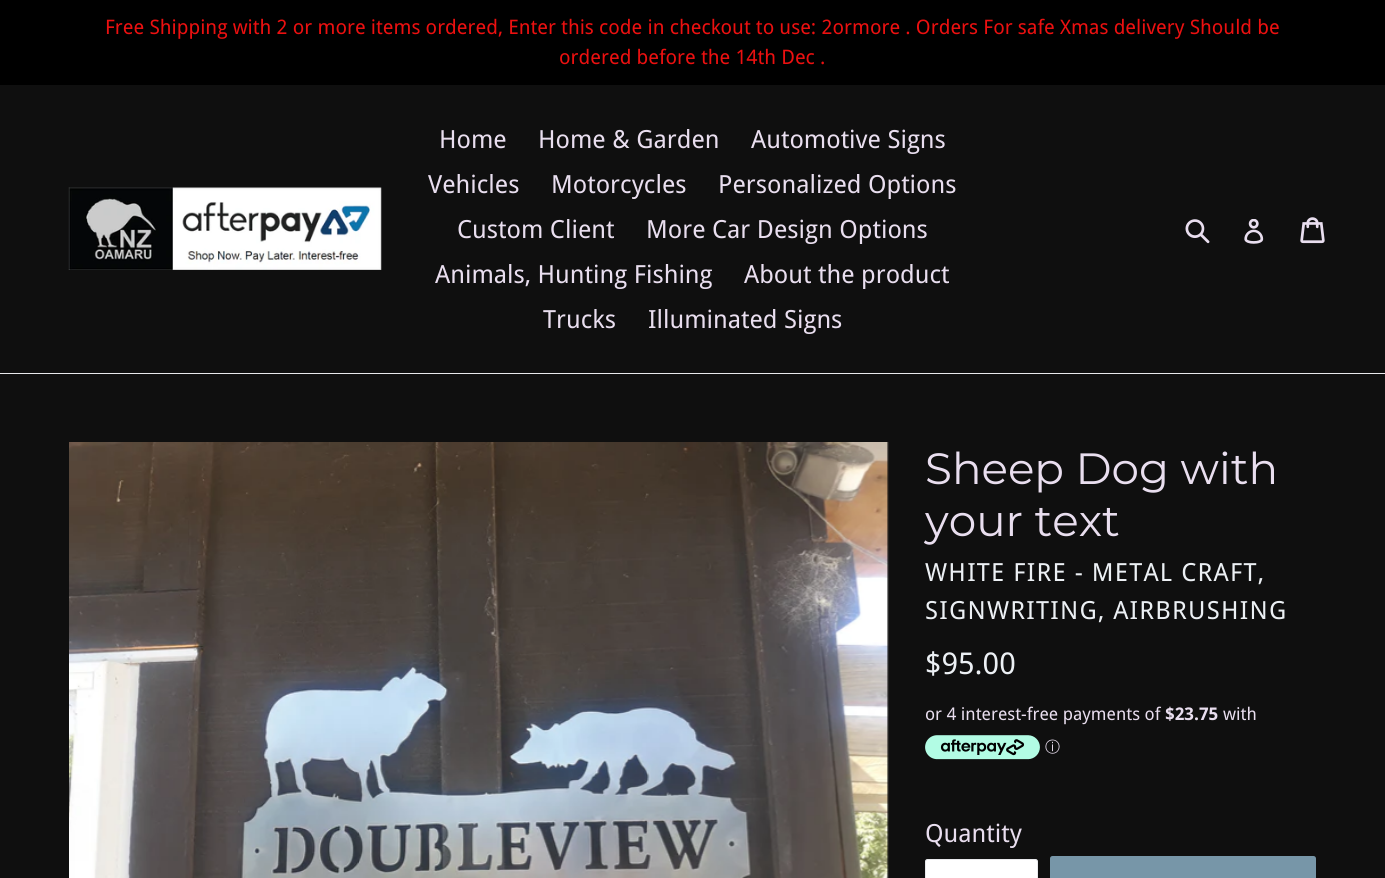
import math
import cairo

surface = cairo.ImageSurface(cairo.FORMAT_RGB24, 1385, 878)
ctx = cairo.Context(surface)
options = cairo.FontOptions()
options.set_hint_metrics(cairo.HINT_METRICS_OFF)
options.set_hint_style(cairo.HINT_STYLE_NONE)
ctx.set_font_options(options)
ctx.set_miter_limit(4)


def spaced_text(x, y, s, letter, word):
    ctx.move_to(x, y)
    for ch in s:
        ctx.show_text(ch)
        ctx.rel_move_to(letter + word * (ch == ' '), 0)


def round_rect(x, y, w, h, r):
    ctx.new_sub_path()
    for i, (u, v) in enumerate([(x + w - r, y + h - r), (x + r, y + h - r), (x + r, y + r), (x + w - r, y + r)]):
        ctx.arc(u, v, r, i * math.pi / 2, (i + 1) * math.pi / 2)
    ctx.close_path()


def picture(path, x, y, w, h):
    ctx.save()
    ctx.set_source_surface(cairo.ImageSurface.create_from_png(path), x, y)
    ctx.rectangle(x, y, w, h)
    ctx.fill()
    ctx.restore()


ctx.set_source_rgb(0.059, 0.059, 0.059)
ctx.paint()
ctx.set_source_rgb(0, 0, 0)
ctx.rectangle(0, 0, 1385, 85)
ctx.fill()
ctx.select_font_face("Droid Sans")
ctx.set_font_size(20)
ctx.set_source_rgb(0.925, 0.063, 0.063)
ctx.move_to(105, 34)
ctx.show_text("Free Shipping with 2 or more items ordered, Enter this code in checkout to use: 2ormore . Orders For safe Xmas delivery Should be")
ctx.move_to(559, 64)
ctx.show_text("ordered before the 14th Dec .")
ctx.set_source_rgb(0.91, 0.914, 0.922)
ctx.rectangle(0, 373, 1385, 1)
ctx.fill()
picture("img1.png", 68, 187, 314, 83)
ctx.set_font_size(25)
ctx.set_source_rgb(0.914, 0.871, 0.937)
ctx.move_to(439, 148)
ctx.show_text("Home")
ctx.move_to(538, 148)
ctx.show_text("Home & Garden")
ctx.move_to(751, 148)
ctx.show_text("Automotive Signs")
ctx.move_to(428, 193)
ctx.show_text("Vehicles")
ctx.move_to(551, 193)
ctx.show_text("Motorcycles")
ctx.move_to(718, 193)
ctx.show_text("Personalized Options")
ctx.move_to(457, 238)
ctx.show_text("Custom Client")
ctx.move_to(646, 238)
ctx.show_text("More Car Design Options")
ctx.move_to(435, 283)
ctx.show_text("Animals, Hunting Fishing")
ctx.move_to(744, 283)
ctx.show_text("About the product")
ctx.move_to(543, 328)
ctx.show_text("Trucks")
ctx.move_to(648, 328)
ctx.show_text("Illuminated Signs")
picture("img2.png", 1185, 219, 25, 25)
picture("img3.png", 1244, 219, 20, 25)
picture("img4.png", 1300, 217, 25, 27)
picture("img5.png", 69, 442, 820, 436)
ctx.select_font_face("Montserrat Thin")
ctx.set_font_size(43.75)
ctx.move_to(925, 484)
ctx.show_text("Sheep Dog with")
ctx.move_to(925, 536)
ctx.show_text("your text")
ctx.select_font_face("Droid Sans")
ctx.set_font_size(25)
ctx.set_source_rgb(0.925, 0.941, 0.957)
spaced_text(925, 581, "WHITE FIRE - METAL CRAFT,", 1.25, 0)
spaced_text(925, 619, "SIGNWRITING, AIRBRUSHING", 1.25, 0)
ctx.set_font_size(30)
ctx.move_to(925, 674)
ctx.show_text("$95.00")
ctx.set_font_size(17.5)
ctx.set_source_rgb(0.914, 0.871, 0.937)
ctx.move_to(925, 720)
ctx.show_text("or 4 interest-free payments of")
ctx.select_font_face("Droid Sans", cairo.FONT_SLANT_NORMAL, cairo.FONT_WEIGHT_BOLD)
ctx.move_to(1165, 720)
ctx.show_text("$23.75")
ctx.select_font_face("Droid Sans")
ctx.move_to(1223, 720)
ctx.show_text("with")
picture("img6.png", 925, 735, 115, 25)
ctx.select_font_face("WenQuanYi Zen Hei Medium")
ctx.set_font_size(15)
ctx.move_to(1045, 752)
ctx.show_text("ⓘ")
ctx.select_font_face("Droid Sans")
ctx.set_font_size(25)
ctx.move_to(925, 842)
ctx.show_text("Quantity")
ctx.set_source_rgb(1, 1, 1)
round_rect(925.5, 859.5, 112, 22, 2)
ctx.fill_preserve()
ctx.set_source_rgb(0.91, 0.914, 0.922)
ctx.set_line_width(1)
ctx.stroke()
ctx.set_source_rgb(0.467, 0.588, 0.659)
round_rect(1050, 856, 266, 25, 2.5)
ctx.fill()
surface.write_to_png("page.png")
